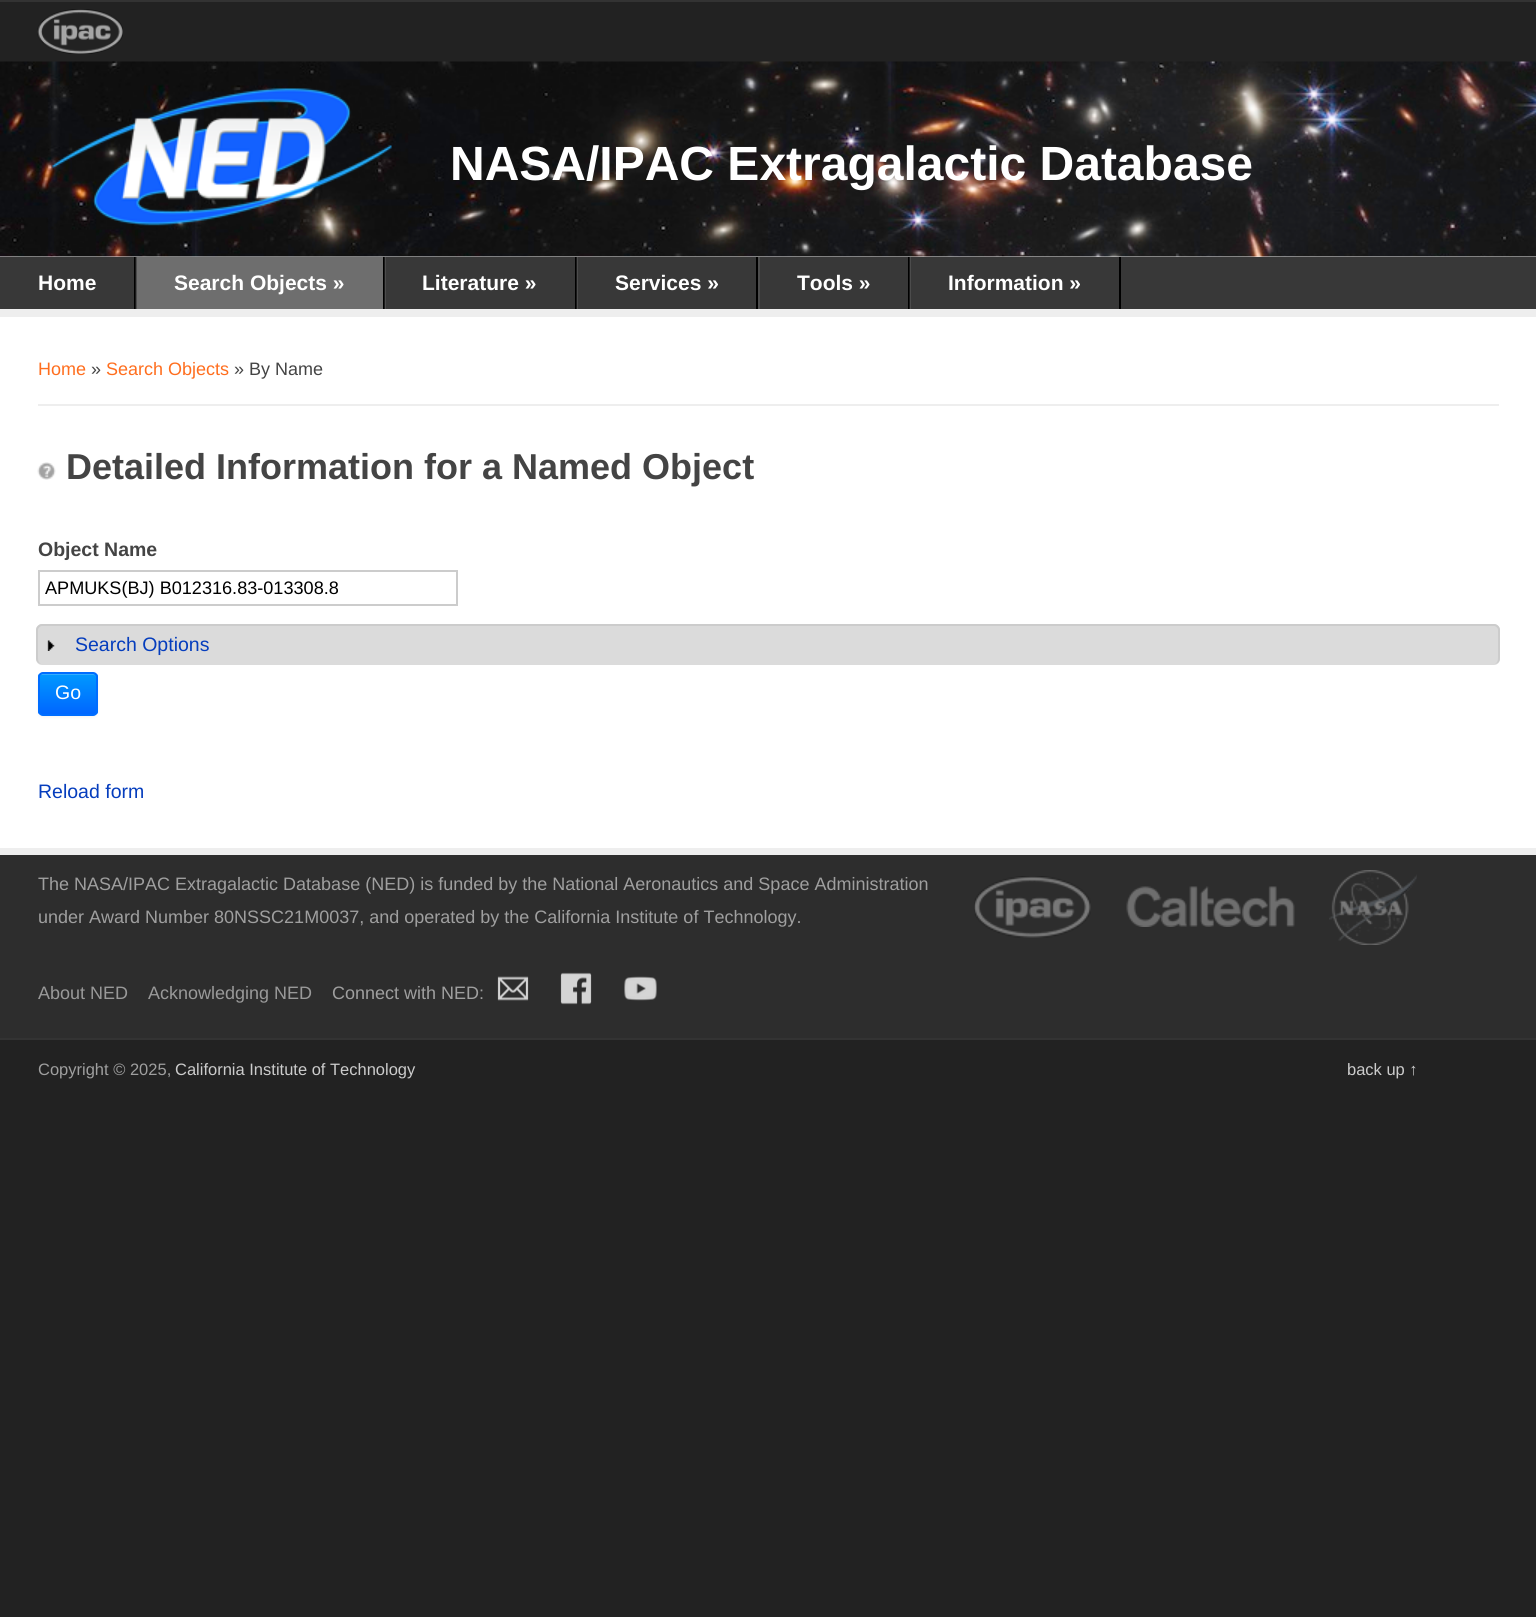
import math
import cairo

surface = cairo.ImageSurface(cairo.FORMAT_RGB24, 1536, 1617)
ctx = cairo.Context(surface)
options = cairo.FontOptions()
options.set_hint_metrics(cairo.HINT_METRICS_OFF)
options.set_hint_style(cairo.HINT_STYLE_NONE)
ctx.set_font_options(options)
ctx.set_miter_limit(4)


def round_rect(x, y, w, h, r):
    ctx.new_sub_path()
    for i, (u, v) in enumerate([(x + w - r, y + h - r), (x + r, y + h - r), (x + r, y + r), (x + w - r, y + r)]):
        ctx.arc(u, v, r, i * math.pi / 2, (i + 1) * math.pi / 2)
    ctx.close_path()


def shadow(x, y, w, h, r, blur, alpha):
    ctx.push_group_with_content(cairo.CONTENT_ALPHA)
    ctx.set_operator(cairo.OPERATOR_SOURCE)
    for i in range(15, -16, -2):
        e = blur * i / 6
        if min(w, h) + 2 * e > 0:
            ctx.set_source_rgba(0, 0, 0, alpha * math.erfc((i - 1) / 8.5) / 2)
            round_rect(x - e, y - e, w + 2 * e, h + 2 * e, max(0, min(r + e + blur * .6, min(w, h) / 2 + e)))
            ctx.fill()
    ctx.mask(ctx.pop_group())


def picture(path, x, y, w, h):
    ctx.save()
    ctx.set_source_surface(cairo.ImageSurface.create_from_png(path), x, y)
    ctx.rectangle(x, y, w, h)
    ctx.fill()
    ctx.restore()


ctx.set_source_rgb(0.133, 0.133, 0.133)
ctx.paint()
ctx.set_source_rgb(1, 1, 1)
ctx.rectangle(0, 317, 1536, 531)
ctx.fill()
ctx.set_source_rgb(0.2, 0.2, 0.2)
ctx.rectangle(0, 0, 1536, 2)
ctx.fill()
picture("img1.png", 37, 9, 86, 45)
ctx.set_source_rgb(0.933, 0.933, 0.933)
ctx.rectangle(0, 256, 1536, 1)
ctx.fill()
picture("img2.png", 0, 61, 1536, 196)
picture("img3.png", 52, 88, 340, 138)
ctx.select_font_face("Liberation Sans", cairo.FONT_SLANT_NORMAL, cairo.FONT_WEIGHT_BOLD)
ctx.set_font_size(48)
ctx.set_source_rgb(1, 1, 1)
ctx.move_to(450, 180)
ctx.show_text("NASA/IPAC Extragalactic Database")
ctx.set_source_rgb(0.22, 0.22, 0.22)
ctx.rectangle(0, 257, 1536, 52)
ctx.fill()
ctx.set_source_rgb(0.298, 0.298, 0.298)
ctx.rectangle(910, 257, 1, 52)
ctx.fill()
ctx.rectangle(577, 257, 1, 52)
ctx.fill()
ctx.rectangle(385, 257, 1, 52)
ctx.fill()
ctx.rectangle(136, 257, 1, 52)
ctx.fill()
ctx.set_source_rgb(0.933, 0.933, 0.933)
ctx.rectangle(0, 309, 1536, 8)
ctx.fill()
ctx.set_source_rgb(0, 0, 0)
ctx.rectangle(134, 257, 1, 52)
ctx.fill()
ctx.set_source_rgb(0.102, 0.102, 0.102)
ctx.rectangle(135, 257, 1, 52)
ctx.fill()
ctx.set_font_size(21)
ctx.set_source_rgb(1, 1, 1)
ctx.move_to(38, 290)
ctx.show_text("Home")
ctx.set_source_rgb(0, 0, 0)
ctx.rectangle(383, 257, 1, 52)
ctx.fill()
ctx.set_source_rgb(0.102, 0.102, 0.102)
ctx.rectangle(384, 257, 1, 52)
ctx.fill()
ctx.set_source_rgb(0.431, 0.431, 0.431)
ctx.rectangle(137, 257, 246, 52)
ctx.fill()
ctx.set_source_rgb(1, 1, 1)
ctx.move_to(174, 290)
ctx.show_text("Search Objects »")
ctx.set_source_rgb(0, 0, 0)
ctx.rectangle(575, 257, 1, 52)
ctx.fill()
ctx.set_source_rgb(0.102, 0.102, 0.102)
ctx.rectangle(576, 257, 1, 52)
ctx.fill()
ctx.set_source_rgb(1, 1, 1)
ctx.move_to(422, 290)
ctx.show_text("Literature »")
ctx.set_source_rgb(0, 0, 0)
ctx.rectangle(756, 257, 2, 52)
ctx.fill()
ctx.set_source_rgb(1, 1, 1)
ctx.move_to(615, 290)
ctx.show_text("Services »")
ctx.set_source_rgb(0, 0, 0)
ctx.rectangle(908, 257, 1, 52)
ctx.fill()
ctx.set_source_rgb(0.102, 0.102, 0.102)
ctx.rectangle(909, 257, 1, 52)
ctx.fill()
ctx.set_source_rgb(0.298, 0.298, 0.298)
ctx.rectangle(758, 257, 2, 52)
ctx.fill()
ctx.set_source_rgb(1, 1, 1)
ctx.move_to(797, 290)
ctx.show_text("Tools »")
ctx.set_source_rgb(0, 0, 0)
ctx.rectangle(1119, 257, 2, 52)
ctx.fill()
ctx.set_source_rgb(1, 1, 1)
ctx.move_to(948, 290)
ctx.show_text("Information »")
ctx.set_source_rgb(0.933, 0.933, 0.933)
ctx.rectangle(38, 404, 1461, 2)
ctx.fill()
ctx.select_font_face("Liberation Sans")
ctx.set_font_size(18)
ctx.set_source_rgb(1, 0.431, 0.118)
ctx.move_to(38, 375)
ctx.show_text("Home")
ctx.set_source_rgb(0.267, 0.267, 0.267)
ctx.move_to(91, 375)
ctx.show_text("»")
ctx.set_source_rgb(1, 0.431, 0.118)
ctx.move_to(106, 375)
ctx.show_text("Search Objects")
ctx.set_source_rgb(0.267, 0.267, 0.267)
ctx.move_to(234, 375)
ctx.show_text("» By Name")
picture("img4.png", 37, 462, 19, 18)
ctx.select_font_face("Liberation Sans", cairo.FONT_SLANT_NORMAL, cairo.FONT_WEIGHT_BOLD)
ctx.set_font_size(36)
ctx.move_to(66, 479)
ctx.show_text("Detailed Information for a Named Object")
ctx.set_font_size(19.5)
ctx.move_to(38, 556)
ctx.show_text("Object Name")
ctx.rectangle(39, 571, 418, 34)
ctx.set_source_rgb(0.8, 0.8, 0.8)
ctx.stroke()
ctx.select_font_face("Liberation Sans")
ctx.set_font_size(18.1)
ctx.set_source_rgb(0, 0, 0)
ctx.move_to(45, 594)
ctx.show_text("APMUKS(BJ) B012316.83-013308.8")
ctx.set_source_rgb(0.859, 0.859, 0.859)
round_rect(36, 624, 1464, 41, 6)
ctx.fill()
ctx.set_source_rgb(0.8, 0.8, 0.8)
ctx.set_fill_rule(cairo.FILL_RULE_EVEN_ODD)
ctx.new_path()
ctx.move_to(42, 624)
ctx.line_to(1494, 624)
ctx.curve_to(1497, 624, 1500, 627, 1500, 630)
ctx.line_to(1500, 658)
ctx.curve_to(1500, 662, 1497, 664, 1494, 664)
ctx.line_to(42, 664)
ctx.curve_to(39, 664, 36, 662, 36, 658)
ctx.line_to(36, 630)
ctx.curve_to(36, 627, 39, 624, 42, 624)
ctx.close_path()
ctx.move_to(42, 626)
ctx.line_to(1494, 626)
ctx.curve_to(1496, 626, 1498, 628, 1498, 630)
ctx.line_to(1498, 658)
ctx.curve_to(1498, 662, 1496, 664, 1494, 664)
ctx.line_to(42, 664)
ctx.curve_to(40, 664, 38, 662, 38, 658)
ctx.line_to(38, 630)
ctx.curve_to(38, 628, 40, 626, 42, 626)
ctx.close_path()
ctx.fill()
picture("img5.png", 47, 640, 8, 11)
ctx.set_font_size(19.5)
ctx.set_source_rgb(0.02, 0.239, 0.741)
ctx.move_to(75, 651)
ctx.show_text("Search Options")
ctx.set_source_rgb(0, 0, 0)
shadow(38, 674, 60, 43, 5, 1.5, 0.05)
ctx.save()
ctx.set_fill_rule(cairo.FILL_RULE_WINDING)
round_rect(38, 672, 60, 44, 5)
ctx.clip()
gradient = cairo.LinearGradient(68, 674, 68, 714)
gradient.add_color_stop_rgba(0, 0, 0.6, 1, 1)
gradient.add_color_stop_rgba(1, 0, 0.4, 1, 1)
ctx.set_source(gradient)
ctx.rectangle(38, 674, 60, 40)
ctx.fill()
ctx.restore()
ctx.set_source_rgb(0.2, 0.678, 1)
ctx.set_fill_rule(cairo.FILL_RULE_WINDING)
ctx.new_path()
ctx.move_to(42, 675)
ctx.line_to(93, 675)
ctx.curve_to(95, 675, 96, 676, 96, 678)
ctx.curve_to(96, 672, 89, 674, 84, 674)
ctx.line_to(50, 674)
ctx.curve_to(46, 674, 39, 672, 39, 678)
ctx.curve_to(39, 676, 40, 675, 42, 675)
ctx.close_path()
ctx.fill()
round_rect(39, 673, 58, 42, 4)
ctx.set_source_rgb(0, 0.427, 1)
ctx.stroke()
ctx.set_source_rgb(1, 1, 1)
ctx.move_to(55, 699)
ctx.show_text("Go")
ctx.set_source_rgb(0.02, 0.239, 0.741)
ctx.move_to(38, 798)
ctx.show_text("Reload form")
ctx.set_source_rgb(0.176, 0.176, 0.176)
ctx.rectangle(0, 855, 1536, 183)
ctx.fill()
ctx.set_source_rgb(0.933, 0.933, 0.933)
ctx.rectangle(0, 848, 1536, 7)
ctx.fill()
ctx.set_font_size(18)
ctx.set_source_rgb(0.624, 0.624, 0.624)
ctx.move_to(38, 890)
ctx.show_text("The NASA/IPAC Extragalactic Database (NED) is funded by the National Aeronautics and Space Administration")
ctx.move_to(38, 923)
ctx.show_text("under Award Number 80NSSC21M0037, and operated by the California Institute of Technology.")
picture("img6.png", 974, 876, 117, 62)
picture("img7.png", 1126, 886, 169, 41)
picture("img8.png", 1329, 870, 88, 75)
ctx.set_source_rgb(0.6, 0.6, 0.6)
ctx.move_to(38, 999)
ctx.show_text("About NED")
ctx.move_to(148, 999)
ctx.show_text("Acknowledging NED")
ctx.set_source_rgb(0.624, 0.624, 0.624)
ctx.move_to(332, 999)
ctx.show_text("Connect with NED:")
picture("img9.png", 497, 976, 32, 25)
picture("img10.png", 560, 972, 32, 33)
picture("img11.png", 624, 976, 33, 25)
ctx.set_source_rgb(0.2, 0.2, 0.2)
ctx.rectangle(0, 1038, 1536, 2)
ctx.fill()
ctx.set_font_size(16.5)
ctx.set_source_rgb(0.624, 0.624, 0.624)
ctx.move_to(38, 1075)
ctx.show_text("Copyright © 2025,")
ctx.set_source_rgb(0.8, 0.8, 0.8)
ctx.move_to(175, 1075)
ctx.show_text("California Institute of Technology")
ctx.move_to(1347, 1075)
ctx.show_text("back up ↑")
surface.write_to_png("page.png")
